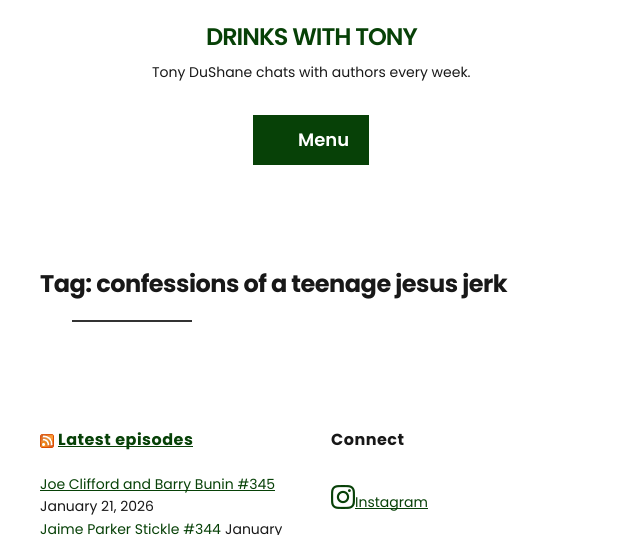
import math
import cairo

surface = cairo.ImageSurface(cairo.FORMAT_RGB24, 622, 535)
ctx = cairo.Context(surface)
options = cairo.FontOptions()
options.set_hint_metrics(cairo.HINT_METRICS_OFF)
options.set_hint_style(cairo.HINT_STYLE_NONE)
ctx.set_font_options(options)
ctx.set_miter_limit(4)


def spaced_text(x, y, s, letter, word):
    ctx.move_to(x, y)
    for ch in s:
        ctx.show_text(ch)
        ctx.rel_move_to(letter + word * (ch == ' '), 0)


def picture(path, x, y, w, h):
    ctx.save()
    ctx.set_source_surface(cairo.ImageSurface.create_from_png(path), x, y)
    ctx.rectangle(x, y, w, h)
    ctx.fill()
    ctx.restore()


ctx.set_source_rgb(1, 1, 1)
ctx.paint()
ctx.select_font_face("Poppins SemiBold")
ctx.set_font_size(24)
ctx.set_source_rgb(0.031, 0.255, 0.031)
spaced_text(206, 45, "DRINKS WITH TONY", -1, 0)
ctx.select_font_face("Poppins")
ctx.set_font_size(14)
ctx.set_source_rgb(0.094, 0.094, 0.094)
ctx.move_to(152, 77)
ctx.show_text("Tony DuShane chats with authors every week.")
ctx.set_source_rgb(0.031, 0.255, 0.031)
ctx.rectangle(253, 115, 116, 50)
ctx.fill()
ctx.select_font_face("Poppins SemiBold")
ctx.set_font_size(18)
ctx.set_source_rgb(1, 1, 1)
ctx.move_to(298, 146)
ctx.show_text("Menu")
ctx.select_font_face("Poppins", cairo.FONT_SLANT_NORMAL, cairo.FONT_WEIGHT_BOLD)
ctx.set_font_size(24)
ctx.set_source_rgb(0.094, 0.094, 0.094)
spaced_text(40, 292, "Tag: confessions of a teenage jesus jerk", -0.5, 0)
ctx.set_source_rgb(0.2, 0.2, 0.2)
ctx.rectangle(72, 320, 120, 2)
ctx.fill()
picture("img1.png", 40, 434, 14, 14)
ctx.set_source_rgb(0.031, 0.255, 0.031)
ctx.rectangle(58, 446, 135, 1)
ctx.fill()
ctx.set_font_size(16)
spaced_text(58, 445, "Latest episodes", 0.5, 0)
ctx.rectangle(40, 490, 235, 1)
ctx.fill()
ctx.select_font_face("Poppins")
ctx.set_font_size(14)
ctx.move_to(40, 489)
ctx.show_text("Joe Clifford and Barry Bunin #345")
ctx.set_source_rgb(0.094, 0.094, 0.094)
ctx.move_to(40, 511)
ctx.show_text("January 21, 2026")
ctx.set_source_rgb(0.031, 0.255, 0.031)
ctx.move_to(40, 534)
ctx.show_text("Jaime Parker Stickle #344")
ctx.set_source_rgb(0.094, 0.094, 0.094)
ctx.move_to(225, 534)
ctx.show_text("January")
ctx.select_font_face("Poppins", cairo.FONT_SLANT_NORMAL, cairo.FONT_WEIGHT_BOLD)
ctx.set_font_size(16)
spaced_text(331, 445, "Connect", 0.5, 0)
picture("img2.png", 331, 485, 24, 24)
ctx.set_source_rgb(0.031, 0.255, 0.031)
ctx.rectangle(355, 508, 73, 1)
ctx.fill()
ctx.select_font_face("Poppins")
ctx.set_font_size(14)
ctx.move_to(355, 507)
ctx.show_text("Instagram")
surface.write_to_png("page.png")
